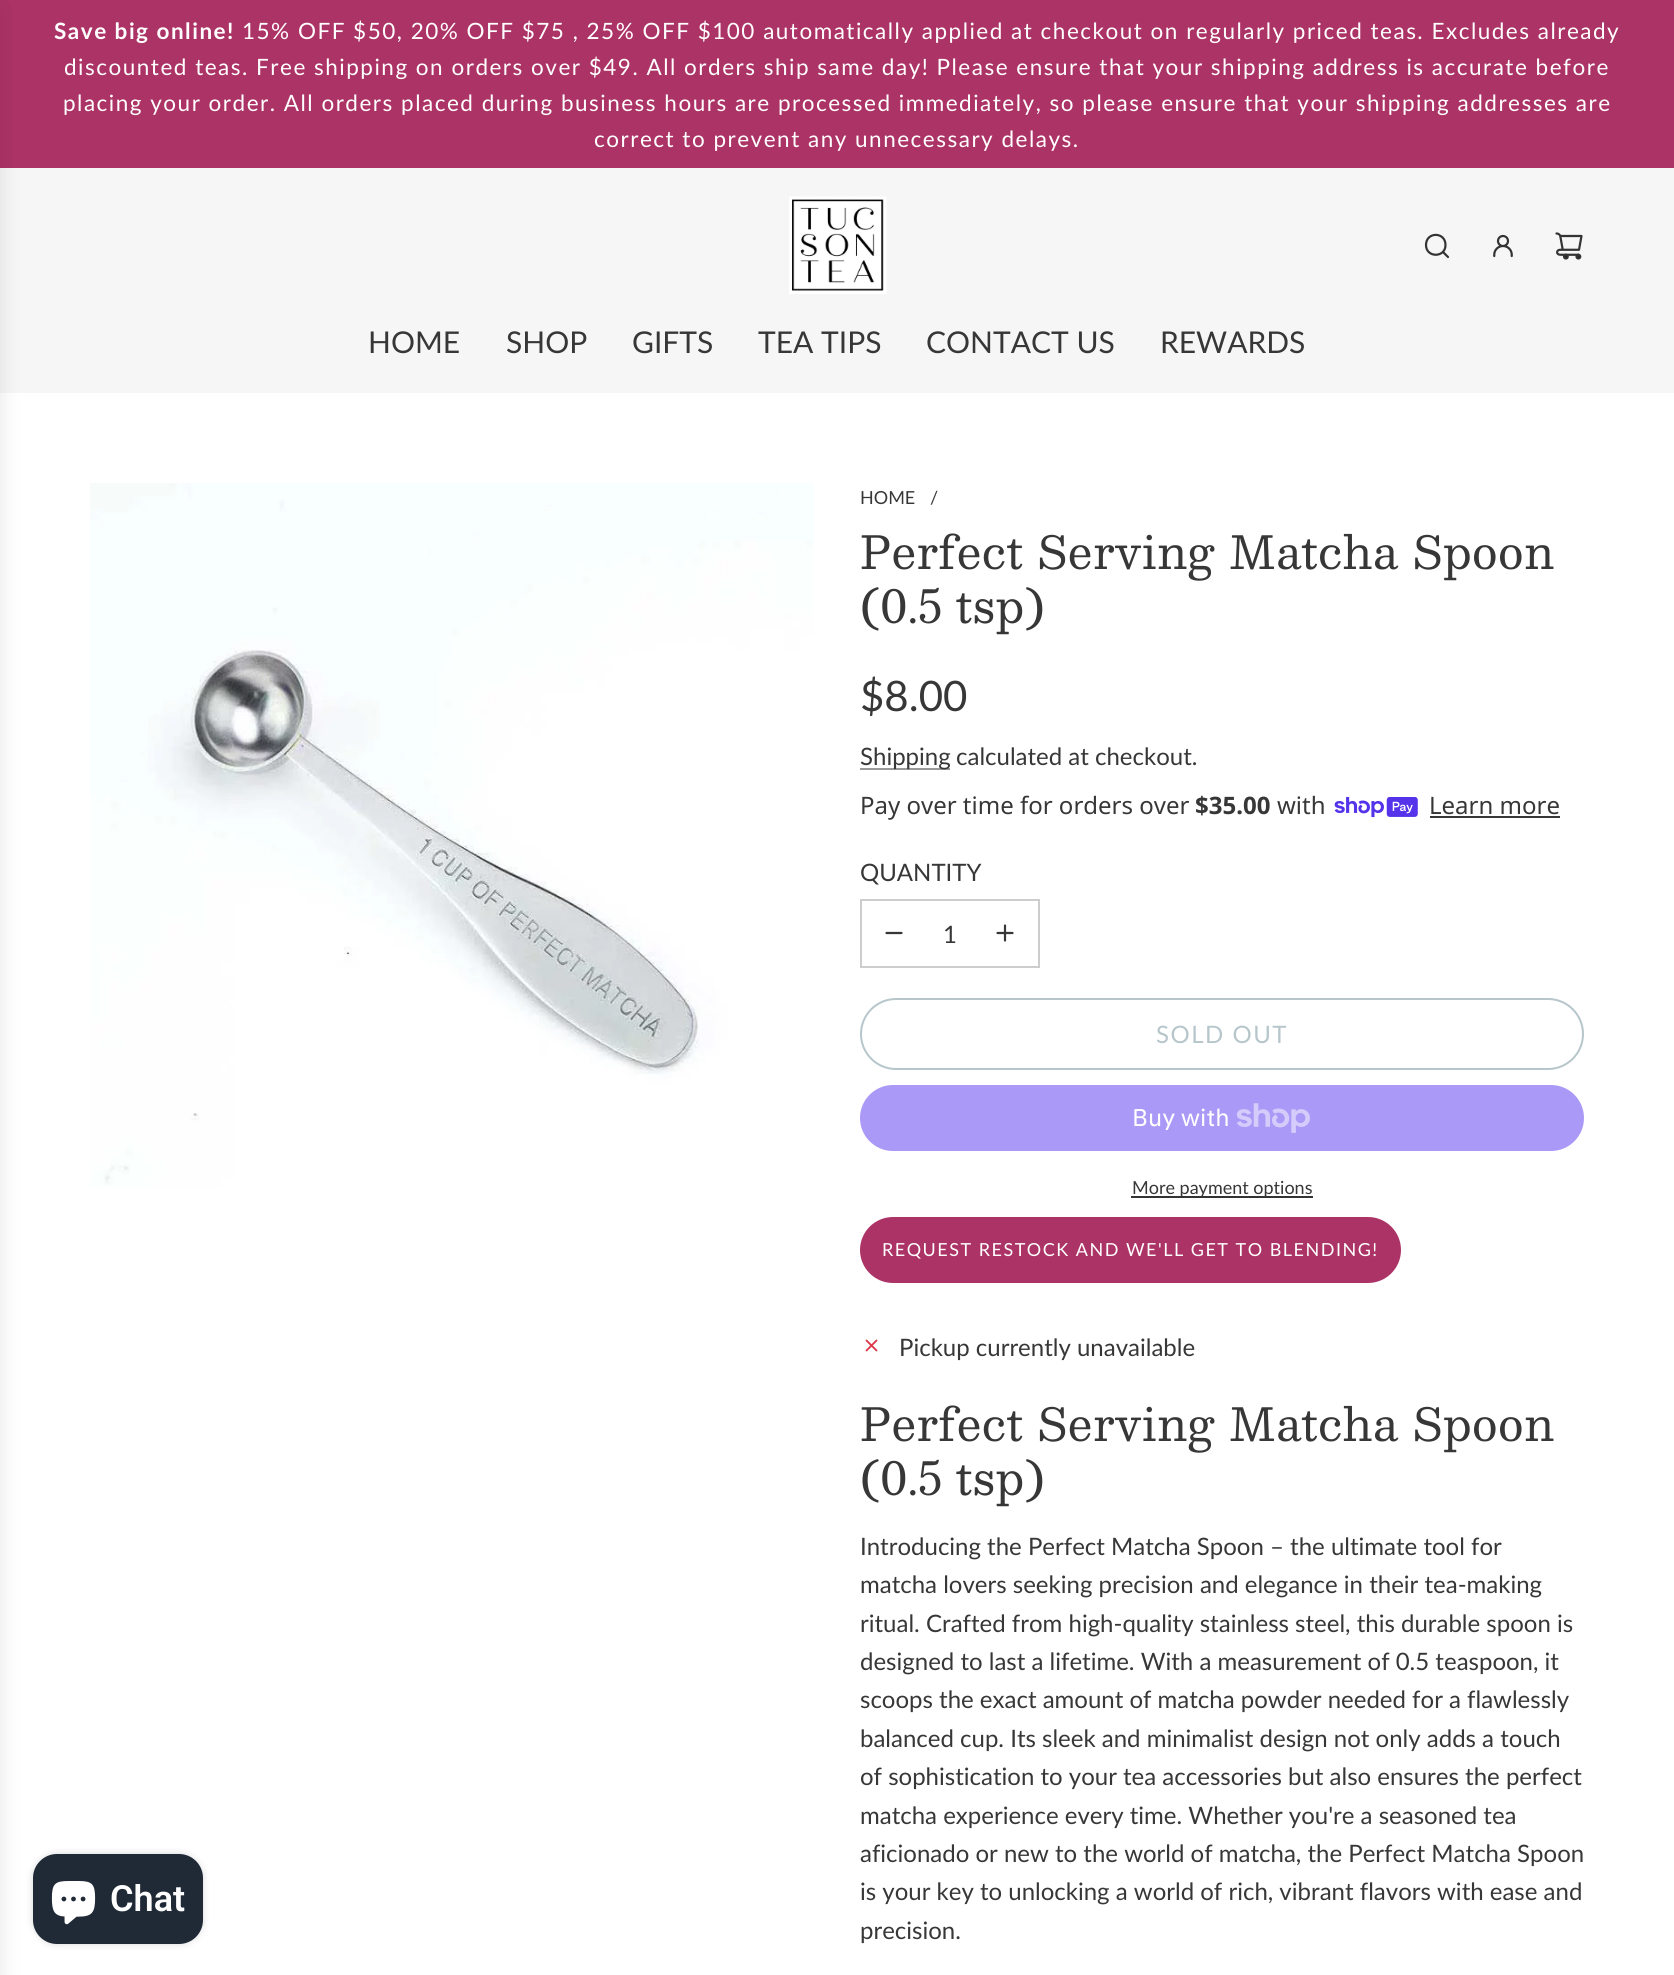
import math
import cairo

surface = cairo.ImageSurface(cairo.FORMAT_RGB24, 1674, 1975)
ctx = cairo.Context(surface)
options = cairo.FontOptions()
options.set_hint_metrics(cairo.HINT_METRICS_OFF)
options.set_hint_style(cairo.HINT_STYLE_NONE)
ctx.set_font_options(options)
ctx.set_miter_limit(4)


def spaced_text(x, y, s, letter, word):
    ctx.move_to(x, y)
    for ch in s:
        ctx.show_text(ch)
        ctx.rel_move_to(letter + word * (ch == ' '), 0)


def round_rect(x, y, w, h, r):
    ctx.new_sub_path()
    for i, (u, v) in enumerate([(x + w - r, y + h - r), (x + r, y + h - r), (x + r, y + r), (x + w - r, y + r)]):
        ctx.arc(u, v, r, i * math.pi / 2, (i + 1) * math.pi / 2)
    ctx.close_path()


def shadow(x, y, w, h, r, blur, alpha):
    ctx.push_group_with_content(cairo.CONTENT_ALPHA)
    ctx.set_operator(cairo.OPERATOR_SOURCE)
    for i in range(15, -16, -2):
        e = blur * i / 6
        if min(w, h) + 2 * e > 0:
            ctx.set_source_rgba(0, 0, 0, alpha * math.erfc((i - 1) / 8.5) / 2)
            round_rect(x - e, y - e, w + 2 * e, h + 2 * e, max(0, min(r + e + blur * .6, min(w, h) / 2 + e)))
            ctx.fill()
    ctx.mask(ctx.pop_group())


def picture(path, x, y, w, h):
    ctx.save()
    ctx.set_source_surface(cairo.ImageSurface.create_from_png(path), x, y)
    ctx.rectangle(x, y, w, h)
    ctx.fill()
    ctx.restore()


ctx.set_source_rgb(1, 1, 1)
ctx.paint()
ctx.set_source_rgb(0.675, 0.2, 0.4)
ctx.rectangle(0, 0, 1674, 168)
ctx.fill()
ctx.select_font_face("Lato", cairo.FONT_SLANT_NORMAL, cairo.FONT_WEIGHT_BOLD)
ctx.set_font_size(22.5)
ctx.set_source_rgb(1, 1, 1)
spaced_text(54, 39, "Save big online!", 1.5, 0)
ctx.select_font_face("Lato")
spaced_text(242, 39, "15% OFF $50, 20% OFF $75 , 25% OFF $100 automatically applied at checkout on regularly priced teas. Excludes already", 1.5, 0)
spaced_text(64, 75, "discounted teas. Free shipping on orders over $49. All orders ship same day! Please ensure that your shipping address is accurate before", 1.5, 0)
spaced_text(63, 111, "placing your order. All orders placed during business hours are processed immediately, so please ensure that your shipping addresses are", 1.5, 0)
spaced_text(594, 147, "correct to prevent any unnecessary delays.", 1.5, 0)
ctx.set_source_rgb(0.961, 0.961, 0.961)
ctx.rectangle(0, 168, 1674, 225)
ctx.fill()
ctx.set_source_rgb(0, 0, 0)
shadow(-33, 8, 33, 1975, 0, 11, 0.1)
picture("img1.png", 789, 196, 98, 98)
ctx.new_path()
ctx.move_to(1443.5, 252.5)
ctx.line_to(1448, 257)
ctx.move_to(1426, 245)
ctx.curve_to(1426, 258, 1445.5, 258, 1445.5, 245)
ctx.curve_to(1445.5, 231.5, 1426, 231.5, 1426, 245)
ctx.close_path()
ctx.set_source_rgb(0.2, 0.2, 0.2)
ctx.set_line_width(2.2)
ctx.set_line_cap(cairo.LINE_CAP_ROUND)
ctx.set_line_join(cairo.LINE_JOIN_ROUND)
ctx.stroke()
picture("img2.png", 1493, 234, 20, 24)
picture("img3.png", 1555, 232, 28, 28)
ctx.set_font_size(30)
ctx.set_source_rgb(0.216, 0.216, 0.216)
ctx.move_to(368, 353)
ctx.show_text("HOME")
ctx.move_to(506, 353)
ctx.show_text("SHOP")
ctx.move_to(632, 353)
ctx.show_text("GIFTS")
ctx.move_to(758, 353)
ctx.show_text("TEA TIPS")
ctx.move_to(926, 353)
ctx.show_text("CONTACT US")
ctx.move_to(1160, 353)
ctx.show_text("REWARDS")
picture("img4.png", 90, 483, 724, 705)
ctx.set_font_size(18)
ctx.move_to(860, 504)
ctx.show_text("HOME")
ctx.move_to(930, 504)
ctx.show_text("/")
ctx.select_font_face("Besley")
ctx.set_font_size(45)
spaced_text(860, 569, "Perfect Serving Matcha Spoon", 0.45, 0)
spaced_text(860, 623, "(0.5 tsp)", 0.45, 0)
ctx.select_font_face("Lato")
ctx.set_font_size(42)
ctx.move_to(860, 711)
ctx.show_text("$8.00")
ctx.set_source_rgb(0.6, 0.6, 0.6)
ctx.rectangle(860, 768, 90, 2)
ctx.fill()
ctx.set_font_size(24)
ctx.set_source_rgb(0.216, 0.216, 0.216)
ctx.move_to(860, 765)
ctx.show_text("Shipping")
ctx.move_to(956, 765)
ctx.show_text("calculated at checkout.")
ctx.select_font_face("Noto Sans")
ctx.move_to(860, 814)
ctx.show_text("Pay over time for orders over")
ctx.select_font_face("Noto Sans", cairo.FONT_SLANT_NORMAL, cairo.FONT_WEIGHT_BOLD)
ctx.move_to(1195, 814)
ctx.show_text("$35.00")
ctx.select_font_face("Noto Sans")
ctx.move_to(1277, 814)
ctx.show_text("with")
picture("img5.png", 1334, 797, 84, 21)
ctx.move_to(1429, 814)
ctx.show_text("Learn more")
ctx.rectangle(1430, 816, 130, 2)
ctx.fill()
ctx.select_font_face("Lato")
ctx.move_to(860, 881)
ctx.show_text("QUANTITY")
ctx.rectangle(861, 900, 178, 67)
ctx.set_source_rgb(0.804, 0.804, 0.804)
ctx.set_line_width(2)
ctx.set_line_cap(cairo.LINE_CAP_BUTT)
ctx.set_line_join(cairo.LINE_JOIN_MITER)
ctx.stroke()
ctx.new_path()
ctx.move_to(886.5, 933)
ctx.line_to(901.5, 933)
ctx.set_source_rgb(0.216, 0.216, 0.216)
ctx.set_line_width(2.2)
ctx.set_line_cap(cairo.LINE_CAP_ROUND)
ctx.set_line_join(cairo.LINE_JOIN_ROUND)
ctx.stroke()
ctx.move_to(943, 943)
ctx.show_text("1")
ctx.new_path()
ctx.move_to(997.5, 933)
ctx.line_to(1005, 933)
ctx.move_to(1005, 933)
ctx.line_to(1012.5, 933)
ctx.move_to(1005, 933)
ctx.line_to(1005, 925.5)
ctx.move_to(1005, 933)
ctx.line_to(1005, 940.5)
ctx.stroke()
round_rect(861, 999, 722, 70, 35)
ctx.set_source_rgb(0.714, 0.776, 0.796)
ctx.set_line_width(2)
ctx.set_line_cap(cairo.LINE_CAP_BUTT)
ctx.set_line_join(cairo.LINE_JOIN_MITER)
ctx.stroke()
spaced_text(1156, 1043, "SOLD OUT", 1.5, 0)
ctx.set_source_rgb(0.667, 0.6, 0.961)
round_rect(860, 1085, 724, 66, 33)
ctx.fill()
ctx.select_font_face("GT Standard")
ctx.set_source_rgb(1, 1, 1)
ctx.move_to(1132, 1126)
ctx.show_text("Buy with")
picture("img6.png", 1236, 1103, 74, 30)
ctx.set_source_rgb(0.2, 0.2, 0.2)
ctx.rectangle(1131, 1196, 182, 2)
ctx.fill()
ctx.select_font_face("Lato")
ctx.set_font_size(18)
ctx.set_source_rgb(0.216, 0.216, 0.216)
ctx.move_to(1132, 1194)
ctx.show_text("More payment options")
ctx.set_source_rgb(0.675, 0.2, 0.4)
round_rect(860, 1217, 541, 66, 33)
ctx.fill()
ctx.set_source_rgb(1, 1, 1)
spaced_text(882, 1256, "REQUEST RESTOCK AND WE'LL GET TO BLENDING!", 1.5, 0)
ctx.new_path()
ctx.move_to(866.5, 1350.5)
ctx.line_to(871.5, 1345.5)
ctx.line_to(876.5, 1350.5)
ctx.move_to(876.5, 1340.5)
ctx.line_to(871.5, 1345.5)
ctx.line_to(866.5, 1340.5)
ctx.set_source_rgb(0.863, 0.208, 0.271)
ctx.set_line_width(1.8)
ctx.set_line_cap(cairo.LINE_CAP_ROUND)
ctx.set_line_join(cairo.LINE_JOIN_ROUND)
ctx.stroke()
ctx.set_font_size(24)
ctx.set_source_rgb(0.216, 0.216, 0.216)
ctx.move_to(899, 1356)
ctx.show_text("Pickup currently unavailable")
ctx.select_font_face("Besley")
ctx.set_font_size(45)
spaced_text(860, 1441, "Perfect Serving Matcha Spoon", 0.45, 0)
spaced_text(860, 1495, "(0.5 tsp)", 0.45, 0)
ctx.select_font_face("Lato")
ctx.set_font_size(24)
ctx.move_to(860, 1555)
ctx.show_text("Introducing the Perfect Matcha Spoon – the ultimate tool for")
ctx.move_to(860, 1593)
ctx.show_text("matcha lovers seeking precision and elegance in their tea-making")
ctx.move_to(860, 1632)
ctx.show_text("ritual. Crafted from high-quality stainless steel, this durable spoon is")
ctx.move_to(860, 1670)
ctx.show_text("designed to last a lifetime. With a measurement of 0.5 teaspoon, it")
ctx.move_to(860, 1708)
ctx.show_text("scoops the exact amount of matcha powder needed for a flawlessly")
ctx.move_to(860, 1747)
ctx.show_text("balanced cup. Its sleek and minimalist design not only adds a touch")
ctx.move_to(860, 1785)
ctx.show_text("of sophistication to your tea accessories but also ensures the perfect")
ctx.move_to(860, 1824)
ctx.show_text("matcha experience every time. Whether you're a seasoned tea")
ctx.move_to(860, 1862)
ctx.show_text("aficionado or new to the world of matcha, the Perfect Matcha Spoon")
ctx.move_to(860, 1900)
ctx.show_text("is your key to unlocking a world of rich, vibrant flavors with ease and")
ctx.move_to(860, 1939)
ctx.show_text("precision.")
ctx.set_source_rgb(0, 0, 0)
shadow(33, 1854, 170, 90, 24, 4, 0.15)
ctx.set_source_rgb(0.125, 0.165, 0.212)
round_rect(33, 1854, 170, 90, 24)
ctx.fill()
picture("img7.png", 51, 1881, 45, 44)
ctx.select_font_face("Roboto SemiBold")
ctx.set_font_size(36)
ctx.set_source_rgb(1, 1, 1)
ctx.move_to(110, 1911)
ctx.show_text("Chat")
surface.write_to_png("page.png")
